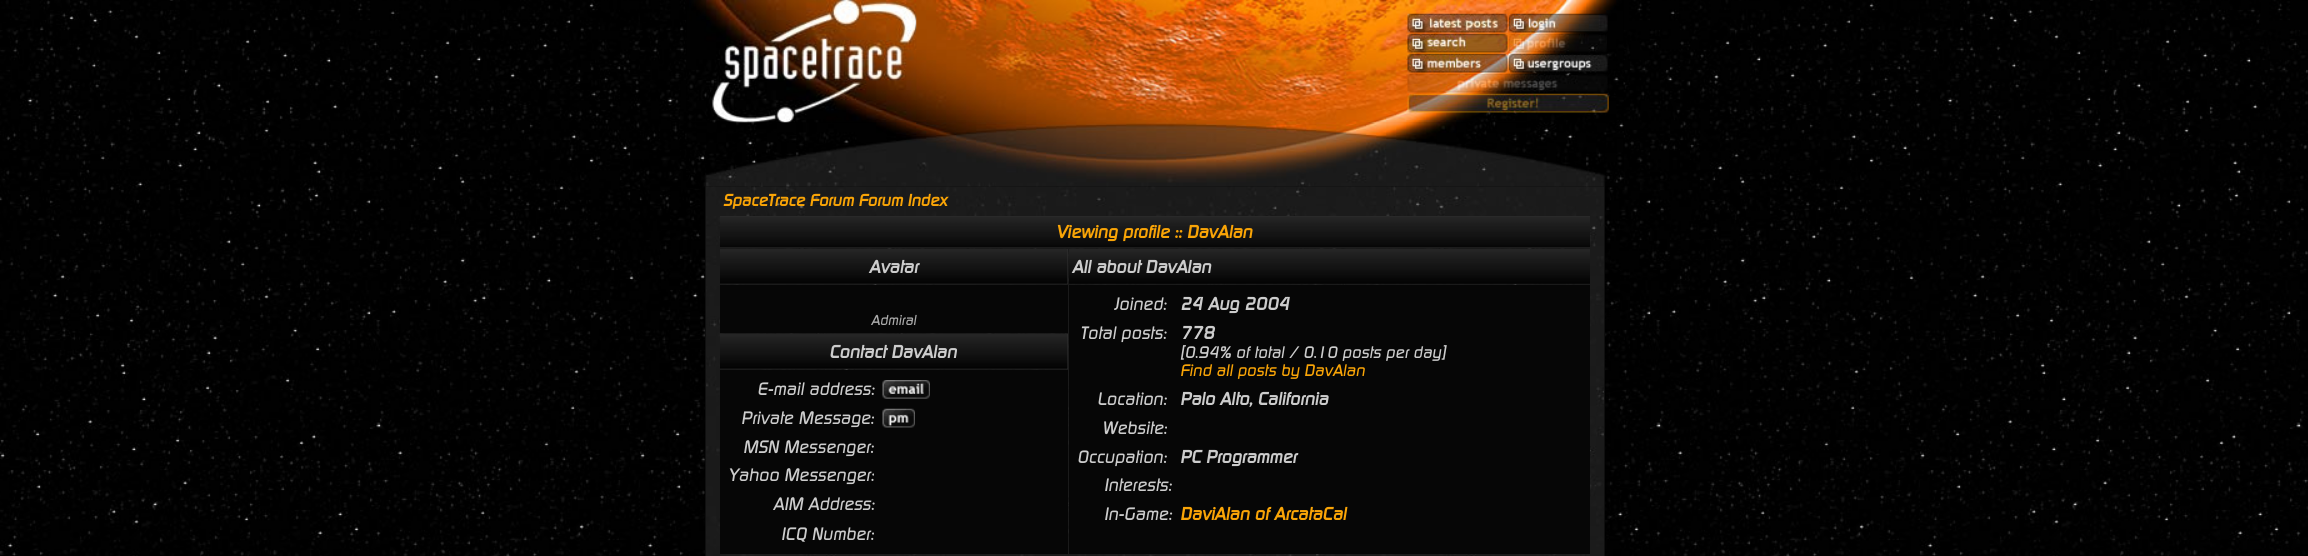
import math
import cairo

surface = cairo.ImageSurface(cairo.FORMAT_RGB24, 2308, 556)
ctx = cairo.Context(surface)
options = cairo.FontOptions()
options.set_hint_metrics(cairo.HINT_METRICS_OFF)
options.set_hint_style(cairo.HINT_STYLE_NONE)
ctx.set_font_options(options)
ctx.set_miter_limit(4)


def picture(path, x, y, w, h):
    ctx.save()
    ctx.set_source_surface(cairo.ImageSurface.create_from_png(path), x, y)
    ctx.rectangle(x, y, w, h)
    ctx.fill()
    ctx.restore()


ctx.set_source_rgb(1, 1, 1)
ctx.paint()
picture("img1.png", 0, 0, 2308, 556)
picture("img2.png", 686, 0, 938, 188)
picture("img3.png", 689, 0, 228, 123)
picture("img4.png", 1407, 13, 101, 20)
picture("img5.png", 1508, 13, 100, 20)
picture("img6.png", 1407, 33, 101, 20)
picture("img7.png", 1508, 33, 99, 20)
picture("img8.png", 1407, 53, 101, 20)
picture("img9.png", 1508, 53, 101, 20)
picture("img10.png", 1407, 73, 201, 20)
picture("img11.png", 1407, 93, 202, 20)
picture("img13.png", 706, 186, 898, 370)
ctx.set_source_rgb(0.059, 0.059, 0.059)
ctx.rectangle(1604, 186, 1, 370)
ctx.fill()
ctx.rectangle(705, 186, 1, 370)
ctx.fill()
picture("img12.png", 689, 122, 935, 65)
ctx.select_font_face("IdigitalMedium", cairo.FONT_SLANT_NORMAL, cairo.FONT_WEIGHT_BOLD)
ctx.set_font_size(16.25)
ctx.set_source_rgb(0.973, 0.643, 0.024)
ctx.move_to(723, 206)
ctx.show_text("SpaceTrace Forum Forum Index")
ctx.set_source_rgb(0.2, 0.2, 0.2)
ctx.rectangle(720, 216, 870, 32)
ctx.fill()
picture("img14.png", 720, 216, 870, 32)
ctx.set_font_size(17.5)
ctx.set_source_rgb(0.973, 0.643, 0.024)
ctx.move_to(1056, 238)
ctx.show_text("Viewing profile :: DavAlan")
ctx.set_source_rgb(0.2, 0.2, 0.2)
ctx.rectangle(720, 249, 348, 35)
ctx.fill()
picture("img15.png", 720, 249, 348, 35)
ctx.set_source_rgb(0.8, 0.8, 0.8)
ctx.move_to(869, 273)
ctx.show_text("Avatar")
picture("img16.png", 1068, 249, 522, 35)
ctx.move_to(1072, 273)
ctx.show_text("All about DavAlan")
ctx.set_source_rgb(0.024, 0.024, 0.024)
ctx.rectangle(720, 285, 348, 48)
ctx.fill()
ctx.select_font_face("IdigitalMedium Medium")
ctx.set_font_size(14)
ctx.set_source_rgb(0.667, 0.667, 0.667)
ctx.move_to(871, 325)
ctx.show_text("Admiral")
ctx.set_source_rgb(0.024, 0.024, 0.024)
ctx.rectangle(1069, 285, 521, 269)
ctx.fill()
ctx.set_font_size(17.5)
ctx.set_source_rgb(0.8, 0.8, 0.8)
ctx.move_to(1114, 310)
ctx.show_text("Joined:")
ctx.select_font_face("IdigitalMedium", cairo.FONT_SLANT_NORMAL, cairo.FONT_WEIGHT_BOLD)
ctx.move_to(1180, 310)
ctx.show_text("24 Aug 2004")
ctx.select_font_face("IdigitalMedium Medium")
ctx.move_to(1080, 339)
ctx.show_text("Total posts:")
ctx.select_font_face("IdigitalMedium", cairo.FONT_SLANT_NORMAL, cairo.FONT_WEIGHT_BOLD)
ctx.move_to(1180, 339)
ctx.show_text("778")
ctx.select_font_face("IdigitalMedium Medium")
ctx.set_font_size(16.25)
ctx.move_to(1180, 358)
ctx.show_text("[0.94% of total / 0.10 posts per day]")
ctx.set_source_rgb(0.973, 0.643, 0.024)
ctx.move_to(1180, 376)
ctx.show_text("Find all posts by DavAlan")
ctx.set_font_size(17.5)
ctx.set_source_rgb(0.8, 0.8, 0.8)
ctx.move_to(1097, 405)
ctx.show_text("Location:")
ctx.select_font_face("IdigitalMedium", cairo.FONT_SLANT_NORMAL, cairo.FONT_WEIGHT_BOLD)
ctx.move_to(1180, 405)
ctx.show_text("Palo Alto, California")
ctx.select_font_face("IdigitalMedium Medium")
ctx.move_to(1102, 434)
ctx.show_text("Website:")
ctx.move_to(1077, 463)
ctx.show_text("Occupation:")
ctx.select_font_face("IdigitalMedium", cairo.FONT_SLANT_NORMAL, cairo.FONT_WEIGHT_BOLD)
ctx.move_to(1180, 463)
ctx.show_text("PC Programmer")
ctx.select_font_face("IdigitalMedium Medium")
ctx.move_to(1104, 491)
ctx.show_text("Interests:")
ctx.move_to(1104, 520)
ctx.show_text("In-Game:")
ctx.select_font_face("IdigitalMedium", cairo.FONT_SLANT_NORMAL, cairo.FONT_WEIGHT_BOLD)
ctx.set_source_rgb(0.973, 0.643, 0.024)
ctx.move_to(1180, 520)
ctx.show_text("DaviAlan of ArcataCal")
ctx.set_source_rgb(0.2, 0.2, 0.2)
ctx.rectangle(720, 334, 348, 35)
ctx.fill()
picture("img17.png", 720, 334, 348, 35)
ctx.set_source_rgb(0.8, 0.8, 0.8)
ctx.move_to(829, 358)
ctx.show_text("Contact DavAlan")
ctx.set_source_rgb(0.024, 0.024, 0.024)
ctx.rectangle(720, 370, 348, 184)
ctx.fill()
ctx.select_font_face("IdigitalMedium Medium")
ctx.set_source_rgb(0.8, 0.8, 0.8)
ctx.move_to(757, 395)
ctx.show_text("E-mail address:")
picture("img18.png", 882, 380, 48, 19)
ctx.move_to(741, 424)
ctx.show_text("Private Message:")
picture("img19.png", 882, 408, 33, 20)
ctx.move_to(743, 453)
ctx.show_text("MSN Messenger:")
ctx.move_to(728, 481)
ctx.show_text("Yahoo Messenger:")
ctx.move_to(773, 510)
ctx.show_text("AIM Address:")
ctx.move_to(781, 540)
ctx.show_text("ICQ Number:")
surface.write_to_png("page.png")
